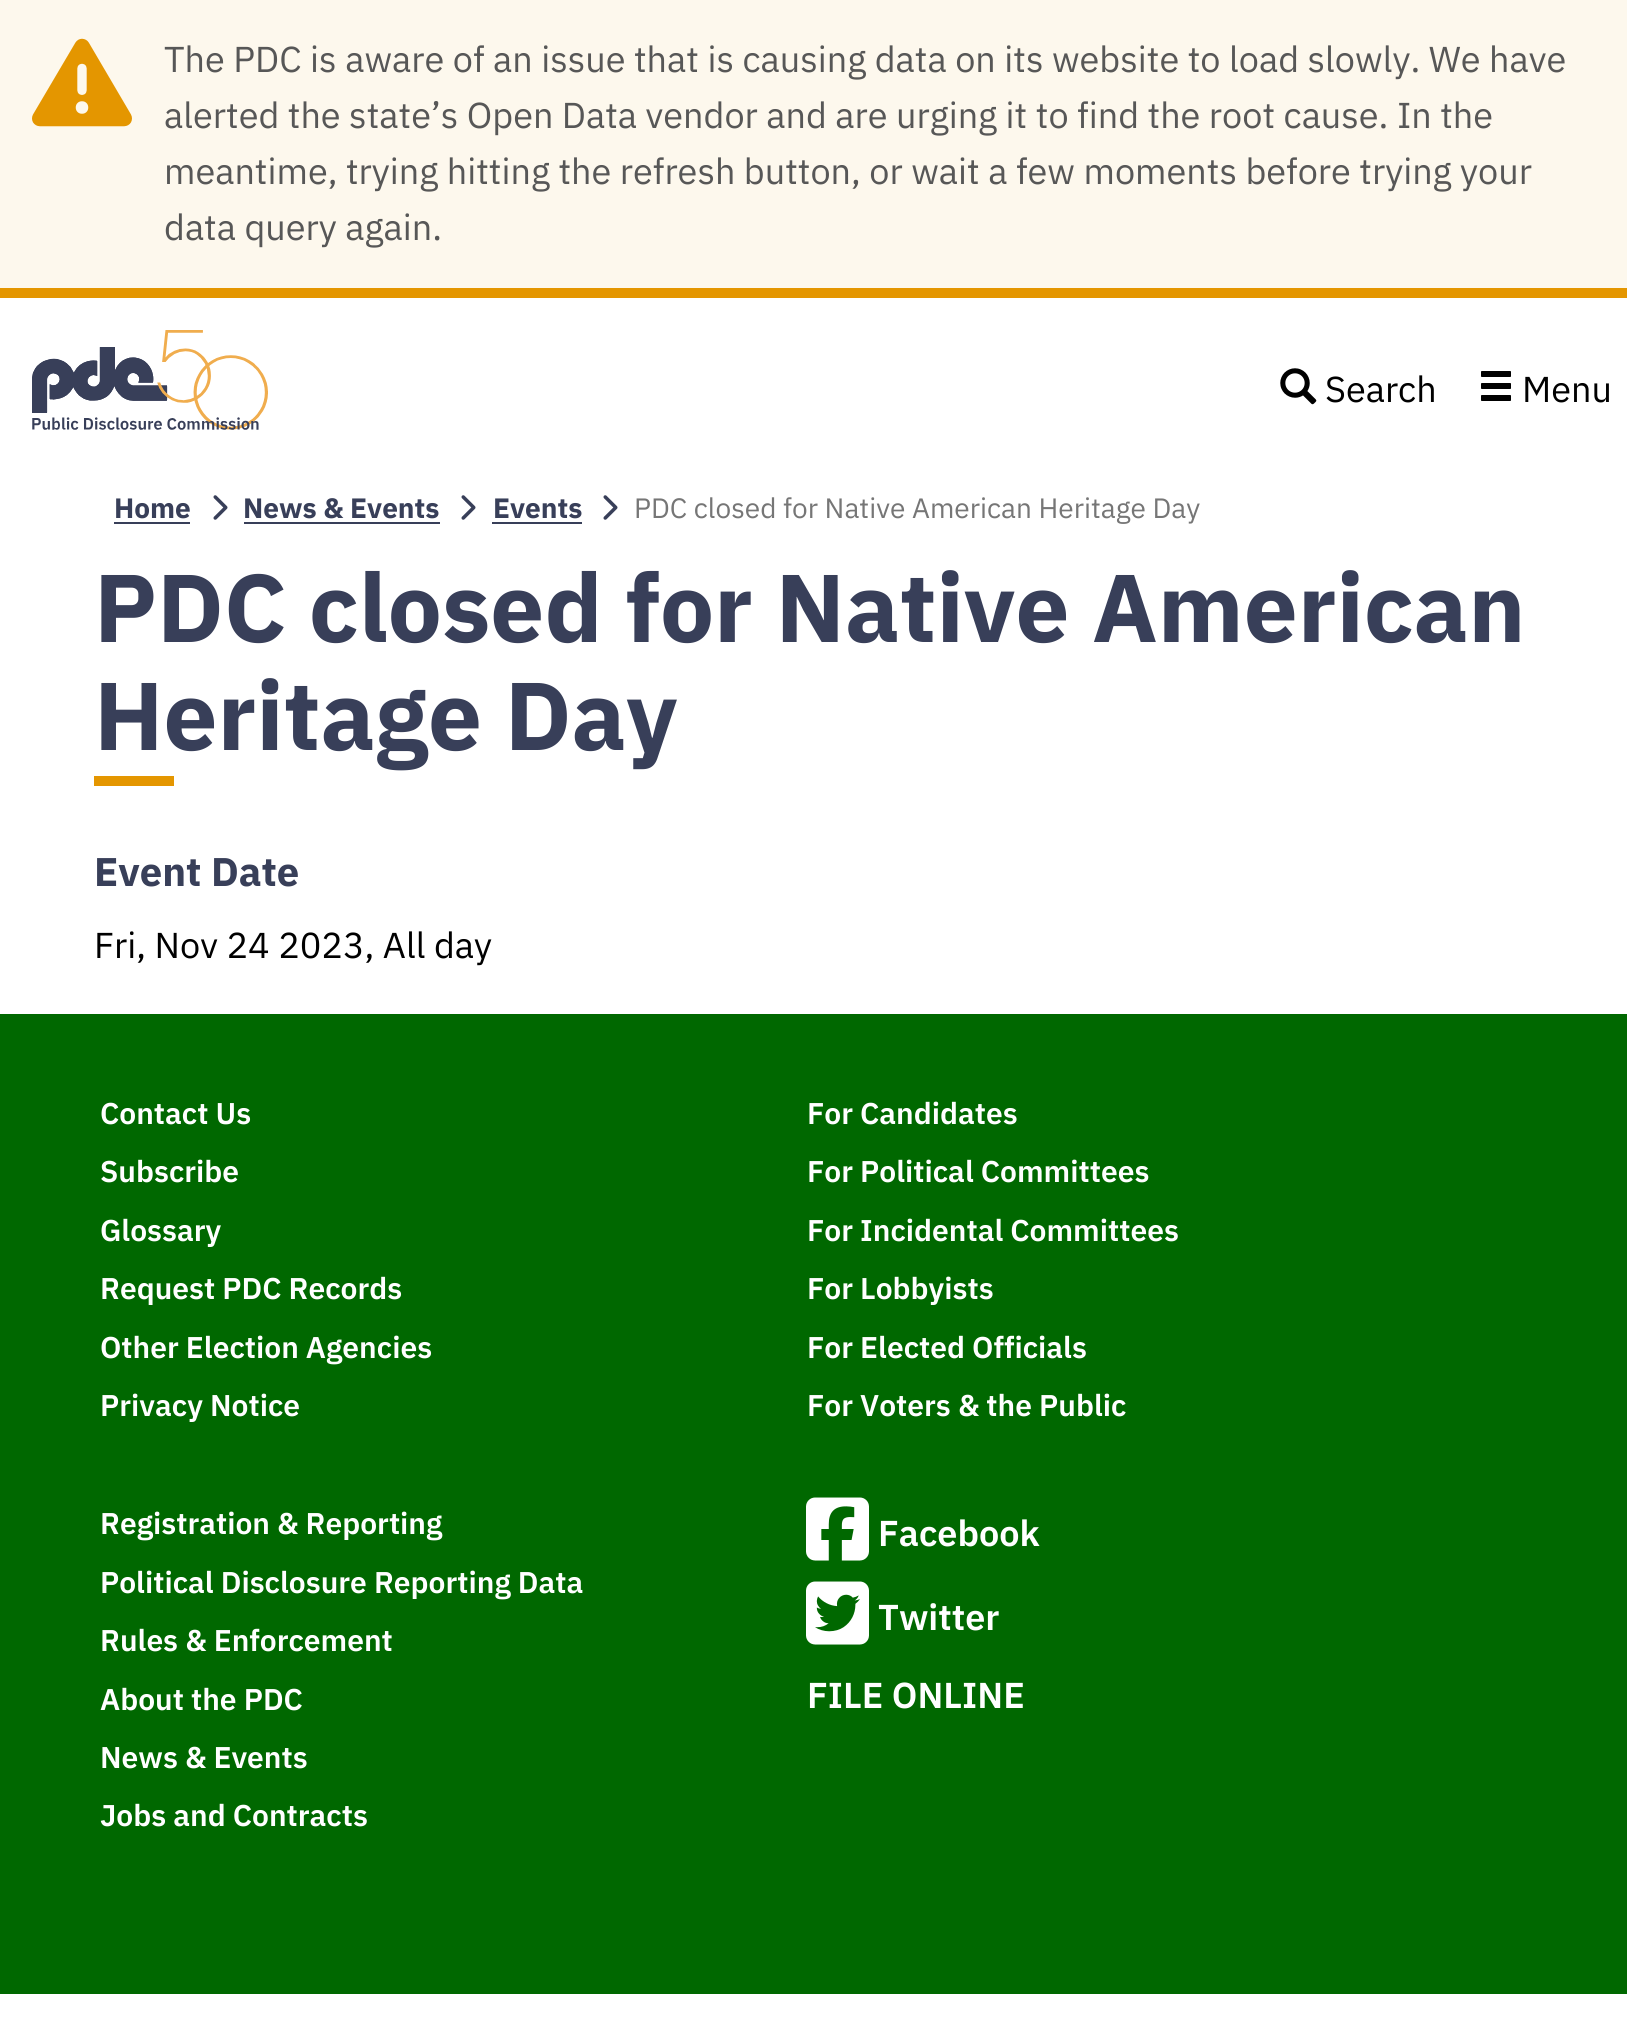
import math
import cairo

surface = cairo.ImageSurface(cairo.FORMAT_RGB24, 1627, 2019)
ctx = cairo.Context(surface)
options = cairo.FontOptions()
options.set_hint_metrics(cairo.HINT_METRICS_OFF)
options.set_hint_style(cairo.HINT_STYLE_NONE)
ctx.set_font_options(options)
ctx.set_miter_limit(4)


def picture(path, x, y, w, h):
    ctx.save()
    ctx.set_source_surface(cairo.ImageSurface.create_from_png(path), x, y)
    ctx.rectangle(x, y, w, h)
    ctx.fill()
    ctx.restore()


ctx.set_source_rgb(1, 1, 1)
ctx.paint()
ctx.set_source_rgb(0.992, 0.969, 0.929)
ctx.rectangle(0, 0, 1627, 288)
ctx.fill()
ctx.set_source_rgb(0.894, 0.588, 0)
ctx.rectangle(0, 288, 1627, 10)
ctx.fill()
picture("img1.png", 32, 38, 100, 89)
ctx.select_font_face("IBM Plex Sans")
ctx.set_font_size(36)
ctx.set_source_rgb(0.341, 0.341, 0.341)
ctx.move_to(164, 72)
ctx.show_text("The PDC is aware of an issue that is causing data on its website to load slowly. We have")
ctx.move_to(164, 128)
ctx.show_text("alerted the state’s Open Data vendor and are urging it to find the root cause. In the")
ctx.move_to(164, 184)
ctx.show_text("meantime, trying hitting the refresh button, or wait a few moments before trying your")
ctx.move_to(164, 240)
ctx.show_text("data query again.")
picture("img2.png", 32, 330, 236, 100)
picture("img3.png", 1280, 368, 37, 37)
ctx.set_source_rgb(0, 0, 0)
ctx.move_to(1325, 402)
ctx.show_text("Search")
picture("img4.png", 1481, 371, 30, 30)
ctx.move_to(1522, 402)
ctx.show_text("Menu")
ctx.select_font_face("IBM Plex Sans", cairo.FONT_SLANT_NORMAL, cairo.FONT_WEIGHT_BOLD)
ctx.set_font_size(28)
ctx.set_source_rgb(0.22, 0.247, 0.349)
ctx.move_to(114, 518)
ctx.show_text("Home")
ctx.rectangle(114, 522, 76, 2)
ctx.fill()
picture("img5.png", 213, 495, 15, 25)
ctx.move_to(243, 518)
ctx.show_text("News & Events")
ctx.rectangle(244, 522, 196, 2)
ctx.fill()
picture("img5.png", 461, 495, 15, 25)
ctx.move_to(493, 518)
ctx.show_text("Events")
ctx.rectangle(492, 522, 90, 2)
ctx.fill()
picture("img5.png", 603, 495, 15, 25)
ctx.select_font_face("IBM Plex Sans")
ctx.set_source_rgb(0.463, 0.463, 0.463)
ctx.move_to(634, 518)
ctx.show_text("PDC closed for Native American Heritage Day")
ctx.select_font_face("IBM Plex Sans", cairo.FONT_SLANT_NORMAL, cairo.FONT_WEIGHT_BOLD)
ctx.set_font_size(96)
ctx.set_source_rgb(0.22, 0.247, 0.349)
ctx.move_to(94, 642)
ctx.show_text("PDC closed for Native American")
ctx.move_to(94, 750)
ctx.show_text("Heritage Day")
ctx.set_source_rgb(0.894, 0.588, 0)
ctx.rectangle(94, 776, 80, 10)
ctx.fill()
ctx.set_font_size(40)
ctx.set_source_rgb(0.22, 0.247, 0.349)
ctx.move_to(94, 886)
ctx.show_text("Event Date")
ctx.select_font_face("IBM Plex Sans")
ctx.set_font_size(36)
ctx.set_source_rgb(0, 0, 0)
ctx.move_to(94, 958)
ctx.show_text("Fri, Nov 24 2023, All day")
ctx.set_source_rgb(0, 0.408, 0)
ctx.rectangle(0, 1014, 1627, 980)
ctx.fill()
ctx.select_font_face("IBM Plex Sans SemiBold")
ctx.set_font_size(30)
ctx.set_source_rgb(1, 1, 1)
ctx.move_to(100, 1124)
ctx.show_text("Contact Us")
ctx.move_to(100, 1182)
ctx.show_text("Subscribe")
ctx.move_to(100, 1241)
ctx.show_text("Glossary")
ctx.move_to(100, 1299)
ctx.show_text("Request PDC Records")
ctx.move_to(100, 1358)
ctx.show_text("Other Election Agencies")
ctx.move_to(100, 1416)
ctx.show_text("Privacy Notice")
ctx.move_to(807, 1124)
ctx.show_text("For Candidates")
ctx.move_to(807, 1182)
ctx.show_text("For Political Committees")
ctx.move_to(807, 1241)
ctx.show_text("For Incidental Committees")
ctx.move_to(807, 1299)
ctx.show_text("For Lobbyists")
ctx.move_to(807, 1358)
ctx.show_text("For Elected Officials")
ctx.move_to(807, 1416)
ctx.show_text("For Voters & the Public")
ctx.move_to(100, 1534)
ctx.show_text("Registration & Reporting")
ctx.move_to(100, 1593)
ctx.show_text("Political Disclosure Reporting Data")
ctx.move_to(100, 1651)
ctx.show_text("Rules & Enforcement")
ctx.move_to(100, 1710)
ctx.show_text("About the PDC")
ctx.move_to(100, 1768)
ctx.show_text("News & Events")
ctx.move_to(100, 1826)
ctx.show_text("Jobs and Contracts")
picture("img6.png", 806, 1497, 63, 64)
ctx.set_font_size(36)
ctx.move_to(878, 1546)
ctx.show_text("Facebook")
picture("img7.png", 806, 1581, 63, 64)
ctx.move_to(878, 1630)
ctx.show_text("Twitter")
ctx.move_to(807, 1708)
ctx.show_text("FILE ONLINE")
surface.write_to_png("page.png")
